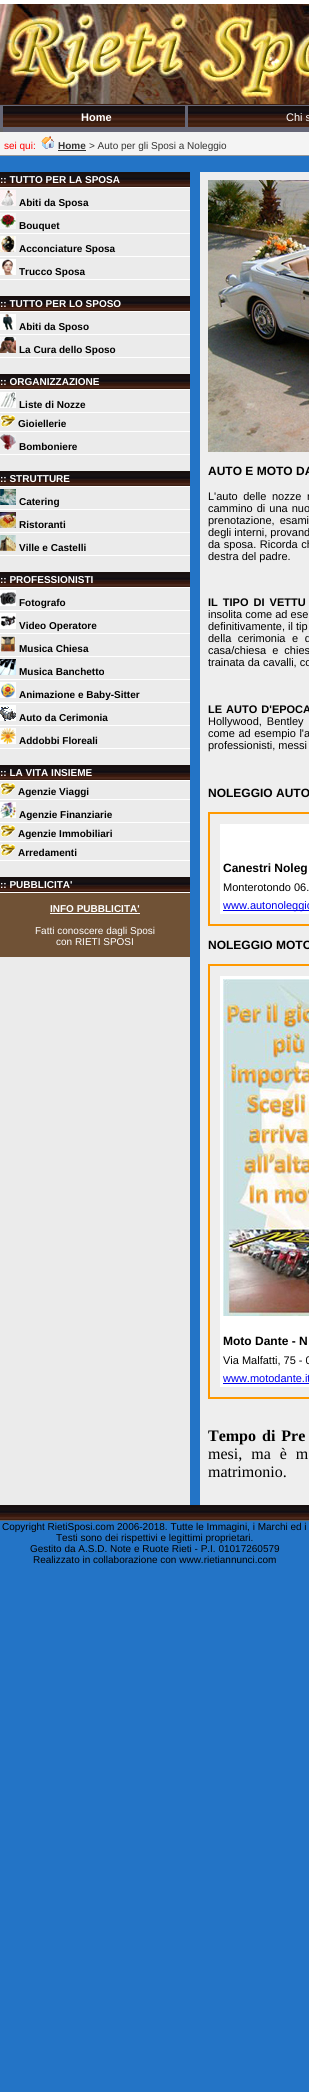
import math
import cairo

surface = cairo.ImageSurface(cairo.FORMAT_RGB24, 309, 2092)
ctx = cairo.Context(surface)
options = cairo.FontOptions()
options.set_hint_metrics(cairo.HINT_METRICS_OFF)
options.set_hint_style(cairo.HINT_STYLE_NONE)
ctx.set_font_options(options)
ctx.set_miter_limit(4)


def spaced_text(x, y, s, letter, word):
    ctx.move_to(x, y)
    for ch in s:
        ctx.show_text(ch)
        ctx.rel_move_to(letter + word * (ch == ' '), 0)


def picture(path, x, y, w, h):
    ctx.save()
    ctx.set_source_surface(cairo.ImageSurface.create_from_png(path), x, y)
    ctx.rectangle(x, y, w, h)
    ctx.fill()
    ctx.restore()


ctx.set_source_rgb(0.137, 0.455, 0.776)
ctx.paint()
picture("img1.png", 0, 104, 309, 1)
ctx.set_source_rgb(1, 1, 1)
ctx.rectangle(0, 0, 309, 4)
ctx.fill()
picture("img2.png", 0, 4, 309, 100)
ctx.set_source_rgb(0.4, 0.404, 0.467)
ctx.rectangle(0, 105, 309, 27)
ctx.fill()
picture("img3.png", 3, 106, 182, 21)
ctx.select_font_face("Liberation Sans", cairo.FONT_SLANT_NORMAL, cairo.FONT_WEIGHT_BOLD)
ctx.set_font_size(11)
ctx.set_source_rgb(1, 1, 1)
ctx.move_to(81, 121)
ctx.show_text("Home")
picture("img4.png", 188, 106, 121, 21)
ctx.select_font_face("Liberation Sans")
ctx.move_to(286, 121)
ctx.show_text("Chi s")
ctx.set_source_rgb(0.4, 0.4, 0.4)
ctx.rectangle(0, 128, 3, 4)
ctx.fill()
ctx.set_source_rgb(0.6, 0.6, 0.6)
ctx.rectangle(0, 155, 309, 1)
ctx.fill()
ctx.set_source_rgb(0.957, 0.957, 0.957)
ctx.rectangle(0, 132, 309, 23)
ctx.fill()
ctx.set_font_size(10)
ctx.set_source_rgb(1, 0, 0)
ctx.move_to(4, 149)
ctx.show_text("sei qui:")
picture("img5.png", 41, 136, 13, 13)
ctx.select_font_face("Liberation Sans", cairo.FONT_SLANT_NORMAL, cairo.FONT_WEIGHT_BOLD)
ctx.set_source_rgb(0.2, 0.2, 0.2)
ctx.move_to(58, 149)
ctx.show_text("Home")
ctx.rectangle(58, 150, 28, 1)
ctx.fill()
ctx.select_font_face("Liberation Sans")
ctx.move_to(89, 149)
ctx.show_text("> Auto per gli Sposi a Noleggio")
ctx.set_source_rgb(0.918, 0.918, 0.918)
ctx.rectangle(0, 188, 190, 1317)
ctx.fill()
picture("img6.png", 0, 172, 190, 15)
ctx.set_source_rgb(1, 1, 1)
ctx.rectangle(0, 187, 190, 1)
ctx.fill()
ctx.select_font_face("Liberation Sans", cairo.FONT_SLANT_NORMAL, cairo.FONT_WEIGHT_BOLD)
ctx.move_to(0, 183)
ctx.show_text(":: TUTTO PER LA SPOSA")
ctx.rectangle(0, 210, 190, 1)
ctx.fill()
picture("img7.png", 0, 190, 16, 16)
ctx.set_source_rgb(0, 0, 0)
ctx.move_to(19, 206)
ctx.show_text("Abiti da Sposa")
ctx.set_source_rgb(1, 1, 1)
ctx.rectangle(0, 233, 190, 1)
ctx.fill()
picture("img8.png", 0, 213, 16, 16)
ctx.set_source_rgb(0, 0, 0)
ctx.move_to(19, 229)
ctx.show_text("Bouquet")
ctx.set_source_rgb(1, 1, 1)
ctx.rectangle(0, 256, 190, 1)
ctx.fill()
picture("img9.png", 0, 236, 16, 16)
ctx.set_source_rgb(0, 0, 0)
ctx.move_to(19, 252)
ctx.show_text("Acconciature Sposa")
ctx.set_source_rgb(1, 1, 1)
ctx.rectangle(0, 279, 190, 1)
ctx.fill()
picture("img10.png", 0, 259, 16, 16)
ctx.set_source_rgb(0, 0, 0)
ctx.move_to(19, 275)
ctx.show_text("Trucco Sposa")
picture("img6.png", 0, 296, 190, 15)
ctx.set_source_rgb(1, 1, 1)
ctx.rectangle(0, 311, 190, 1)
ctx.fill()
ctx.move_to(0, 307)
ctx.show_text(":: TUTTO PER LO SPOSO")
ctx.rectangle(0, 334, 190, 1)
ctx.fill()
picture("img11.png", 0, 314, 16, 16)
ctx.set_source_rgb(0, 0, 0)
ctx.move_to(19, 330)
ctx.show_text("Abiti da Sposo")
ctx.set_source_rgb(1, 1, 1)
ctx.rectangle(0, 357, 190, 1)
ctx.fill()
picture("img12.png", 0, 337, 16, 16)
ctx.set_source_rgb(0, 0, 0)
ctx.move_to(19, 353)
ctx.show_text("La Cura dello Sposo")
picture("img6.png", 0, 374, 190, 15)
ctx.set_source_rgb(1, 1, 1)
ctx.rectangle(0, 389, 190, 1)
ctx.fill()
ctx.move_to(0, 385)
ctx.show_text(":: ORGANIZZAZIONE")
ctx.rectangle(0, 412, 190, 1)
ctx.fill()
picture("img13.png", 0, 392, 16, 16)
ctx.set_source_rgb(0, 0, 0)
ctx.move_to(19, 408)
ctx.show_text("Liste di Nozze")
ctx.set_source_rgb(1, 1, 1)
ctx.rectangle(0, 431, 190, 1)
ctx.fill()
picture("img14.png", 0, 415, 15, 12)
ctx.set_source_rgb(0, 0, 0)
ctx.move_to(18, 427)
ctx.show_text("Gioiellerie")
ctx.set_source_rgb(1, 1, 1)
ctx.rectangle(0, 454, 190, 1)
ctx.fill()
picture("img15.png", 0, 434, 16, 16)
ctx.set_source_rgb(0, 0, 0)
ctx.move_to(19, 450)
ctx.show_text("Bomboniere")
picture("img6.png", 0, 471, 190, 15)
ctx.set_source_rgb(1, 1, 1)
ctx.rectangle(0, 486, 190, 1)
ctx.fill()
ctx.move_to(0, 482)
ctx.show_text(":: STRUTTURE")
ctx.rectangle(0, 509, 190, 1)
ctx.fill()
picture("img16.png", 0, 489, 16, 16)
ctx.set_source_rgb(0, 0, 0)
ctx.move_to(19, 505)
ctx.show_text("Catering")
ctx.set_source_rgb(1, 1, 1)
ctx.rectangle(0, 532, 190, 1)
ctx.fill()
picture("img17.png", 0, 512, 16, 16)
ctx.set_source_rgb(0, 0, 0)
ctx.move_to(19, 528)
ctx.show_text("Ristoranti")
ctx.set_source_rgb(1, 1, 1)
ctx.rectangle(0, 555, 190, 1)
ctx.fill()
picture("img18.png", 0, 535, 16, 16)
ctx.set_source_rgb(0, 0, 0)
ctx.move_to(19, 551)
ctx.show_text("Ville e Castelli")
picture("img6.png", 0, 572, 190, 15)
ctx.set_source_rgb(1, 1, 1)
ctx.rectangle(0, 587, 190, 1)
ctx.fill()
ctx.move_to(0, 583)
ctx.show_text(":: PROFESSIONISTI")
ctx.rectangle(0, 610, 190, 1)
ctx.fill()
picture("img19.png", 0, 590, 16, 16)
ctx.set_source_rgb(0, 0, 0)
ctx.move_to(19, 606)
ctx.show_text("Fotografo")
ctx.set_source_rgb(1, 1, 1)
ctx.rectangle(0, 633, 190, 1)
ctx.fill()
picture("img20.png", 0, 613, 16, 16)
ctx.set_source_rgb(0, 0, 0)
ctx.move_to(19, 629)
ctx.show_text("Video Operatore")
ctx.set_source_rgb(1, 1, 1)
ctx.rectangle(0, 656, 190, 1)
ctx.fill()
picture("img21.png", 0, 636, 16, 16)
ctx.set_source_rgb(0, 0, 0)
ctx.move_to(19, 652)
ctx.show_text("Musica Chiesa")
ctx.set_source_rgb(1, 1, 1)
ctx.rectangle(0, 679, 190, 1)
ctx.fill()
picture("img22.png", 0, 659, 16, 16)
ctx.set_source_rgb(0, 0, 0)
ctx.move_to(19, 675)
ctx.show_text("Musica Banchetto")
ctx.set_source_rgb(1, 1, 1)
ctx.rectangle(0, 702, 190, 1)
ctx.fill()
picture("img23.png", 0, 682, 16, 16)
ctx.set_source_rgb(0, 0, 0)
ctx.move_to(19, 698)
ctx.show_text("Animazione e Baby-Sitter")
ctx.set_source_rgb(1, 1, 1)
ctx.rectangle(0, 725, 190, 1)
ctx.fill()
picture("img24.png", 0, 705, 16, 16)
ctx.set_source_rgb(0, 0, 0)
ctx.move_to(19, 721)
ctx.show_text("Auto da Cerimonia")
ctx.set_source_rgb(1, 1, 1)
ctx.rectangle(0, 748, 190, 1)
ctx.fill()
picture("img25.png", 0, 728, 16, 16)
ctx.set_source_rgb(0, 0, 0)
ctx.move_to(19, 744)
ctx.show_text("Addobbi Floreali")
picture("img6.png", 0, 765, 190, 15)
ctx.set_source_rgb(1, 1, 1)
ctx.rectangle(0, 780, 190, 1)
ctx.fill()
ctx.move_to(0, 776)
ctx.show_text(":: LA VITA INSIEME")
ctx.rectangle(0, 799, 190, 1)
ctx.fill()
picture("img14.png", 0, 783, 15, 12)
ctx.set_source_rgb(0, 0, 0)
ctx.move_to(18, 795)
ctx.show_text("Agenzie Viaggi")
ctx.set_source_rgb(1, 1, 1)
ctx.rectangle(0, 822, 190, 1)
ctx.fill()
picture("img26.png", 0, 802, 16, 16)
ctx.set_source_rgb(0, 0, 0)
ctx.move_to(19, 818)
ctx.show_text("Agenzie Finanziarie")
ctx.set_source_rgb(1, 1, 1)
ctx.rectangle(0, 841, 190, 1)
ctx.fill()
picture("img14.png", 0, 825, 15, 12)
ctx.set_source_rgb(0, 0, 0)
ctx.move_to(18, 837)
ctx.show_text("Agenzie Immobiliari")
ctx.set_source_rgb(1, 1, 1)
ctx.rectangle(0, 860, 190, 1)
ctx.fill()
picture("img14.png", 0, 844, 15, 12)
ctx.set_source_rgb(0, 0, 0)
ctx.move_to(18, 856)
ctx.show_text("Arredamenti")
picture("img6.png", 0, 877, 190, 15)
ctx.set_source_rgb(1, 1, 1)
ctx.rectangle(0, 892, 190, 1)
ctx.fill()
ctx.move_to(0, 888)
ctx.show_text(":: PUBBLICITA'")
ctx.set_source_rgb(0.439, 0.322, 0.212)
ctx.rectangle(0, 893, 190, 64)
ctx.fill()
ctx.set_source_rgb(1, 1, 1)
ctx.move_to(50, 912)
ctx.show_text("INFO PUBBLICITA'")
ctx.rectangle(50, 913, 90, 1)
ctx.fill()
ctx.select_font_face("Liberation Sans")
ctx.move_to(35, 934)
ctx.show_text("Fatti conoscere dagli Sposi")
ctx.move_to(56, 945)
ctx.show_text("con RIETI SPOSI")
ctx.set_source_rgb(0.933, 0.933, 0.933)
ctx.rectangle(200, 172, 109, 1333)
ctx.fill()
picture("img27.png", 208, 180, 101, 272)
ctx.select_font_face("Liberation Sans", cairo.FONT_SLANT_NORMAL, cairo.FONT_WEIGHT_BOLD)
ctx.set_font_size(12)
ctx.set_source_rgb(0, 0, 0)
ctx.move_to(208, 475)
ctx.show_text("AUTO E MOTO DA")
ctx.select_font_face("Liberation Sans")
ctx.set_font_size(11)
spaced_text(208, 500, "L'auto delle nozze r", 0, 2.5)
spaced_text(208, 512, "cammino di una nuo", 0, 1)
spaced_text(208, 524, "prenotazione, esami", 0, 2)
ctx.move_to(208, 536)
ctx.show_text("degli interni, provand")
spaced_text(208, 548, "da sposa. Ricorda ch", 0, 0.5)
ctx.move_to(208, 560)
ctx.show_text("destra del padre.")
ctx.select_font_face("Liberation Sans", cairo.FONT_SLANT_NORMAL, cairo.FONT_WEIGHT_BOLD)
spaced_text(208, 606, "IL TIPO DI VETTU", 0, 2)
ctx.select_font_face("Liberation Sans")
ctx.move_to(208, 618)
ctx.show_text("insolita come ad ese")
ctx.move_to(208, 630)
ctx.show_text("definitivamente, il tip")
spaced_text(208, 642, "della cerimonia e d", 0, 3.5)
spaced_text(208, 654, "casa/chiesa e chies", 0, 3)
ctx.move_to(208, 666)
ctx.show_text("trainata da cavalli, co")
ctx.select_font_face("Liberation Sans", cairo.FONT_SLANT_NORMAL, cairo.FONT_WEIGHT_BOLD)
spaced_text(208, 713, "LE AUTO D'EPOCA", 0, 1)
ctx.select_font_face("Liberation Sans")
spaced_text(208, 725, "Hollywood, Bentley", 0, 2)
spaced_text(208, 737, "come ad esempio l'a", 0, 0.5)
ctx.move_to(208, 749)
ctx.show_text("professionisti, messi")
ctx.select_font_face("Liberation Sans", cairo.FONT_SLANT_NORMAL, cairo.FONT_WEIGHT_BOLD)
ctx.set_font_size(12)
ctx.move_to(208, 797)
ctx.show_text("NOLEGGIO AUTO")
ctx.rectangle(209, 813, 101, 112)
ctx.set_source_rgb(1, 0.6, 0)
ctx.stroke()
ctx.set_source_rgb(1, 1, 1)
ctx.rectangle(220, 824, 89, 90)
ctx.fill()
ctx.set_source_rgb(0, 0, 0)
ctx.move_to(223, 872)
ctx.show_text("Canestri Noleg")
ctx.select_font_face("Liberation Sans")
ctx.set_font_size(11)
ctx.move_to(223, 891)
ctx.show_text("Monterotondo 06.")
ctx.set_source_rgb(0, 0, 0.933)
ctx.rectangle(223, 910, 86, 1)
ctx.fill()
ctx.move_to(223, 909)
ctx.show_text("www.autonoleggio")
ctx.select_font_face("Liberation Sans", cairo.FONT_SLANT_NORMAL, cairo.FONT_WEIGHT_BOLD)
ctx.set_font_size(12)
ctx.set_source_rgb(0, 0, 0)
ctx.move_to(208, 949)
ctx.show_text("NOLEGGIO MOTO")
ctx.rectangle(209, 965, 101, 433)
ctx.set_source_rgb(1, 0.6, 0)
ctx.stroke()
ctx.set_source_rgb(1, 1, 1)
ctx.rectangle(220, 976, 89, 411)
ctx.fill()
picture("img28.png", 223, 979, 86, 337)
ctx.set_source_rgb(0, 0, 0)
ctx.move_to(223, 1345)
ctx.show_text("Moto Dante - N")
ctx.select_font_face("Liberation Sans")
ctx.set_font_size(11)
ctx.move_to(223, 1364)
ctx.show_text("Via Malfatti, 75 - 0")
ctx.set_source_rgb(0, 0, 0.933)
ctx.move_to(223, 1382)
ctx.show_text("www.motodante.it")
ctx.rectangle(223, 1383, 86, 1)
ctx.fill()
ctx.select_font_face("Liberation Serif", cairo.FONT_SLANT_NORMAL, cairo.FONT_WEIGHT_BOLD)
ctx.set_font_size(16)
ctx.set_source_rgb(0, 0, 0)
spaced_text(208, 1441, "Tempo di Pre", 0, 2)
ctx.select_font_face("Liberation Serif")
spaced_text(208, 1459, "mesi, ma è m", 0, 5)
ctx.move_to(208, 1477)
ctx.show_text("matrimonio.")
picture("img29.png", 0, 1505, 309, 15)
ctx.set_source_rgb(0.4, 0.4, 0.4)
ctx.rectangle(0, 1520, 309, 1)
ctx.fill()
ctx.select_font_face("Liberation Sans")
ctx.set_font_size(10)
ctx.set_source_rgb(0, 0, 0)
ctx.move_to(2, 1530)
ctx.show_text("Copyright RietiSposi.com 2006-2018. Tutte le Immagini, i Marchi ed i")
ctx.move_to(56, 1541)
ctx.show_text("Testi sono dei rispettivi e legittimi proprietari.")
ctx.move_to(30, 1552)
ctx.show_text("Gestito da A.S.D. Note e Ruote Rieti - P.I. 01017260579")
ctx.move_to(33, 1563)
ctx.show_text("Realizzato in collaborazione con www.rietiannunci.com")
surface.write_to_png("page.png")
